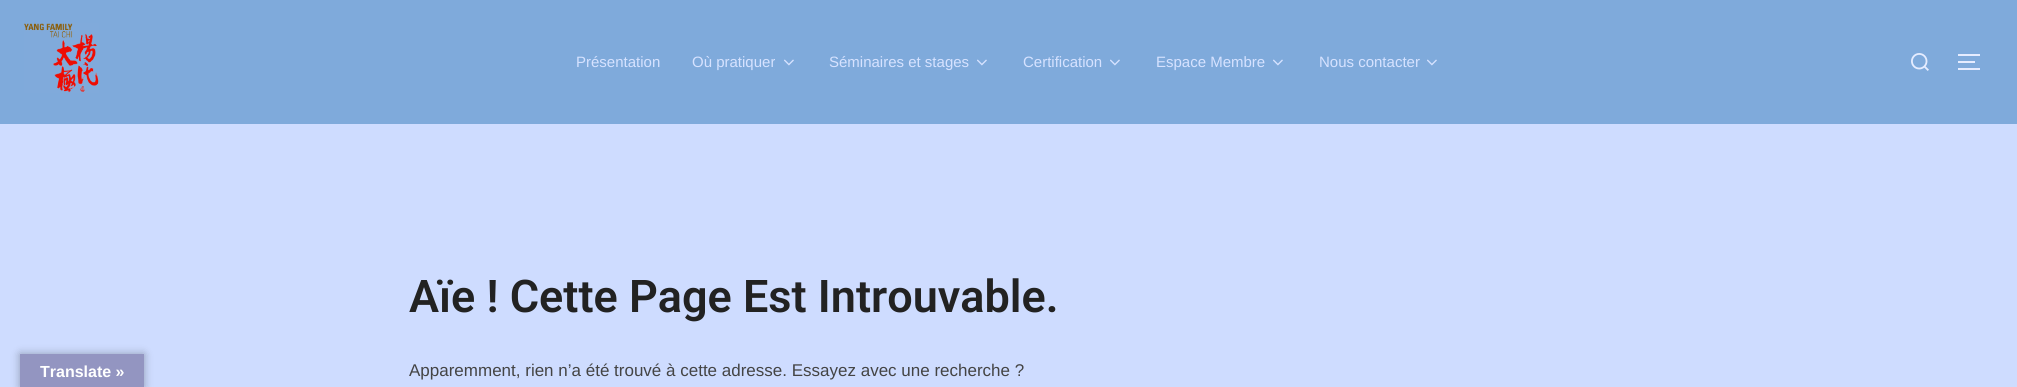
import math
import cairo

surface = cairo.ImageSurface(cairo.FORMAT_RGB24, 2017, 387)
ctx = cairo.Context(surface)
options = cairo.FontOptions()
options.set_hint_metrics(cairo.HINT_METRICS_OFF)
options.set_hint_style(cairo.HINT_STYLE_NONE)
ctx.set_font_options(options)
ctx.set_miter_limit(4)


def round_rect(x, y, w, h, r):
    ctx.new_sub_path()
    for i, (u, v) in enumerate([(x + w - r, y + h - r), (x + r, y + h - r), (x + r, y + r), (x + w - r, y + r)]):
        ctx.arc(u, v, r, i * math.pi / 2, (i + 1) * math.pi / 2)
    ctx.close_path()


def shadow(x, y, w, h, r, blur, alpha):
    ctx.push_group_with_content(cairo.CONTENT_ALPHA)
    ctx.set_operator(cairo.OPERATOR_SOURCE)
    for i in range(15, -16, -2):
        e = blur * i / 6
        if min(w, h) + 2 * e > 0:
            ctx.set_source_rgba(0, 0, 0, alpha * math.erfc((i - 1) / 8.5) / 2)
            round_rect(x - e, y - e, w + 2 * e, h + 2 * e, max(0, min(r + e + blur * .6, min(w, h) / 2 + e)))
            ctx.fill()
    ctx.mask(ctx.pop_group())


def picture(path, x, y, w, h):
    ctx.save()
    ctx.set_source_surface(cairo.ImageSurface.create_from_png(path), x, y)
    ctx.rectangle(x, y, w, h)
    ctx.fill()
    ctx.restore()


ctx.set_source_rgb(0.808, 0.863, 1)
ctx.paint()
ctx.set_source_rgb(0, 0, 0)
shadow(20, 354, 124, 33, 0, 4.5, 0.3)
ctx.set_source_rgb(0.576, 0.584, 0.757)
ctx.rectangle(20, 354, 124, 33)
ctx.fill()
ctx.select_font_face("Liberation Sans", cairo.FONT_SLANT_NORMAL, cairo.FONT_WEIGHT_BOLD)
ctx.set_font_size(16)
ctx.set_source_rgb(1, 1, 1)
ctx.move_to(40, 377)
ctx.show_text("Translate »")
ctx.set_source_rgb(0.498, 0.667, 0.859)
ctx.rectangle(0, 0, 2017, 124)
ctx.fill()
picture("img1.png", 24, 23, 75, 70)
ctx.select_font_face("Liberation Sans")
ctx.set_font_size(15)
ctx.set_source_rgb(0.839, 0.886, 1)
ctx.move_to(576, 67)
ctx.show_text("Présentation")
ctx.move_to(692, 67)
ctx.show_text("Où pratiquer")
picture("img2.png", 784, 59, 10, 7)
ctx.move_to(829, 67)
ctx.show_text("Séminaires et stages")
picture("img2.png", 977, 59, 10, 7)
ctx.move_to(1023, 67)
ctx.show_text("Certification")
picture("img2.png", 1110, 59, 10, 7)
ctx.move_to(1156, 67)
ctx.show_text("Espace Membre")
picture("img2.png", 1273, 59, 10, 7)
ctx.move_to(1319, 67)
ctx.show_text("Nous contacter")
picture("img2.png", 1427, 59, 10, 7)
picture("img3.png", 1911, 53, 18, 18)
ctx.set_source_rgb(0.898, 0.925, 1)
ctx.rectangle(1958, 54, 22, 2)
ctx.fill()
ctx.rectangle(1958, 61, 17, 2)
ctx.fill()
ctx.rectangle(1958, 68, 22, 2)
ctx.fill()
ctx.select_font_face("Roboto SemiBold")
ctx.set_font_size(45)
ctx.set_source_rgb(0.133, 0.133, 0.133)
ctx.move_to(409, 312)
ctx.show_text("Aïe ! Cette Page Est Introuvable.")
ctx.select_font_face("Liberation Sans")
ctx.set_font_size(17)
ctx.set_source_rgb(0.267, 0.267, 0.267)
ctx.move_to(409, 376)
ctx.show_text("Apparemment, rien n’a été trouvé à cette adresse. Essayez avec une recherche ?")
surface.write_to_png("page.png")
